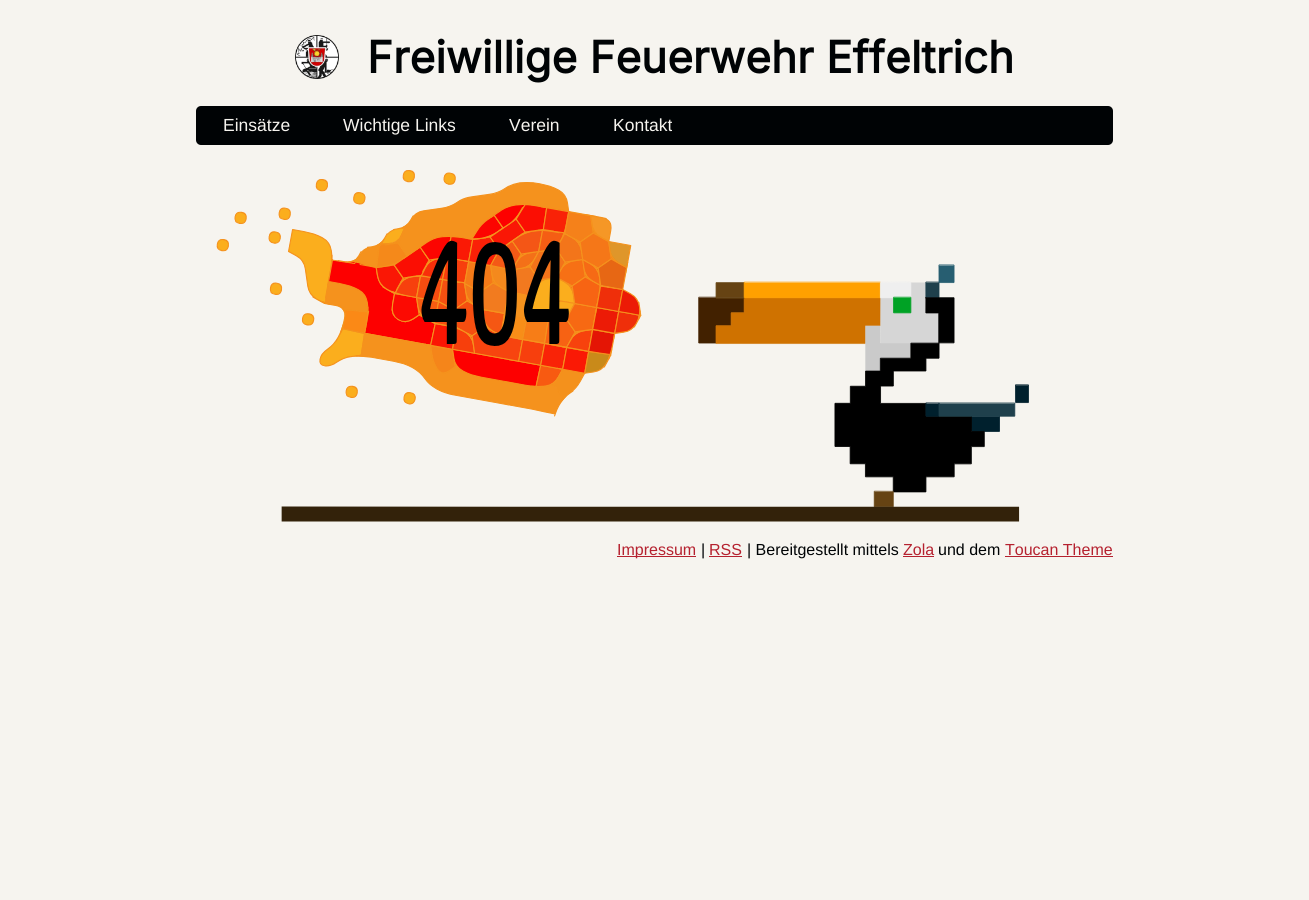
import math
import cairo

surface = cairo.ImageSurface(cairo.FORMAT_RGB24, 1309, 900)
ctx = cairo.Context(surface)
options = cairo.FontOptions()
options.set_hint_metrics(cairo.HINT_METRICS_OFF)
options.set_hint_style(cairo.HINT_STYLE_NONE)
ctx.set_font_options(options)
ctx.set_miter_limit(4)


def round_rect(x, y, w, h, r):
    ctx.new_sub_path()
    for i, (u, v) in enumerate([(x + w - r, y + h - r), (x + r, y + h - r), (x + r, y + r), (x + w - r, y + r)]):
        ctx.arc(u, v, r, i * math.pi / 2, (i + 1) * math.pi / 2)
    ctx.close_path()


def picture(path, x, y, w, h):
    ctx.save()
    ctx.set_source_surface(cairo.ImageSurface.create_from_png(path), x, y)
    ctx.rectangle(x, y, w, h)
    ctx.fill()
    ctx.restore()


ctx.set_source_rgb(0.961, 0.957, 0.937)
ctx.paint()
picture("img1.png", 295, 35, 44, 44)
ctx.select_font_face("Inter", cairo.FONT_SLANT_NORMAL, cairo.FONT_WEIGHT_BOLD)
ctx.set_font_size(44)
ctx.set_source_rgb(0, 0.012, 0.02)
ctx.move_to(367, 73)
ctx.show_text("Freiwillige Feuerwehr Effeltrich")
round_rect(196, 106, 917, 39, 5)
ctx.fill()
ctx.select_font_face("Liberation Sans")
ctx.set_font_size(17.5)
ctx.set_source_rgb(0.961, 0.957, 0.937)
ctx.move_to(223, 131)
ctx.show_text("Einsätze")
ctx.move_to(343, 131)
ctx.show_text("Wichtige Links")
ctx.move_to(509, 131)
ctx.show_text("Verein")
ctx.move_to(613, 131)
ctx.show_text("Kontakt")
picture("img2.png", 216, 170, 813, 352)
ctx.set_source_rgb(0.71, 0.129, 0.184)
ctx.rectangle(617, 556, 79, 1)
ctx.fill()
ctx.set_font_size(16)
ctx.move_to(617, 555)
ctx.show_text("Impressum")
ctx.set_source_rgb(0, 0.012, 0.02)
ctx.move_to(701, 555)
ctx.show_text("|")
ctx.set_source_rgb(0.71, 0.129, 0.184)
ctx.move_to(709, 555)
ctx.show_text("RSS")
ctx.rectangle(709, 556, 33, 1)
ctx.fill()
ctx.set_source_rgb(0, 0.012, 0.02)
ctx.move_to(747, 555)
ctx.show_text("| Bereitgestellt mittels")
ctx.set_source_rgb(0.71, 0.129, 0.184)
ctx.move_to(903, 555)
ctx.show_text("Zola")
ctx.rectangle(903, 556, 31, 1)
ctx.fill()
ctx.set_source_rgb(0, 0.012, 0.02)
ctx.move_to(938, 555)
ctx.show_text("und dem")
ctx.set_source_rgb(0.71, 0.129, 0.184)
ctx.move_to(1005, 555)
ctx.show_text("Toucan Theme")
ctx.rectangle(1005, 556, 108, 1)
ctx.fill()
surface.write_to_png("page.png")
